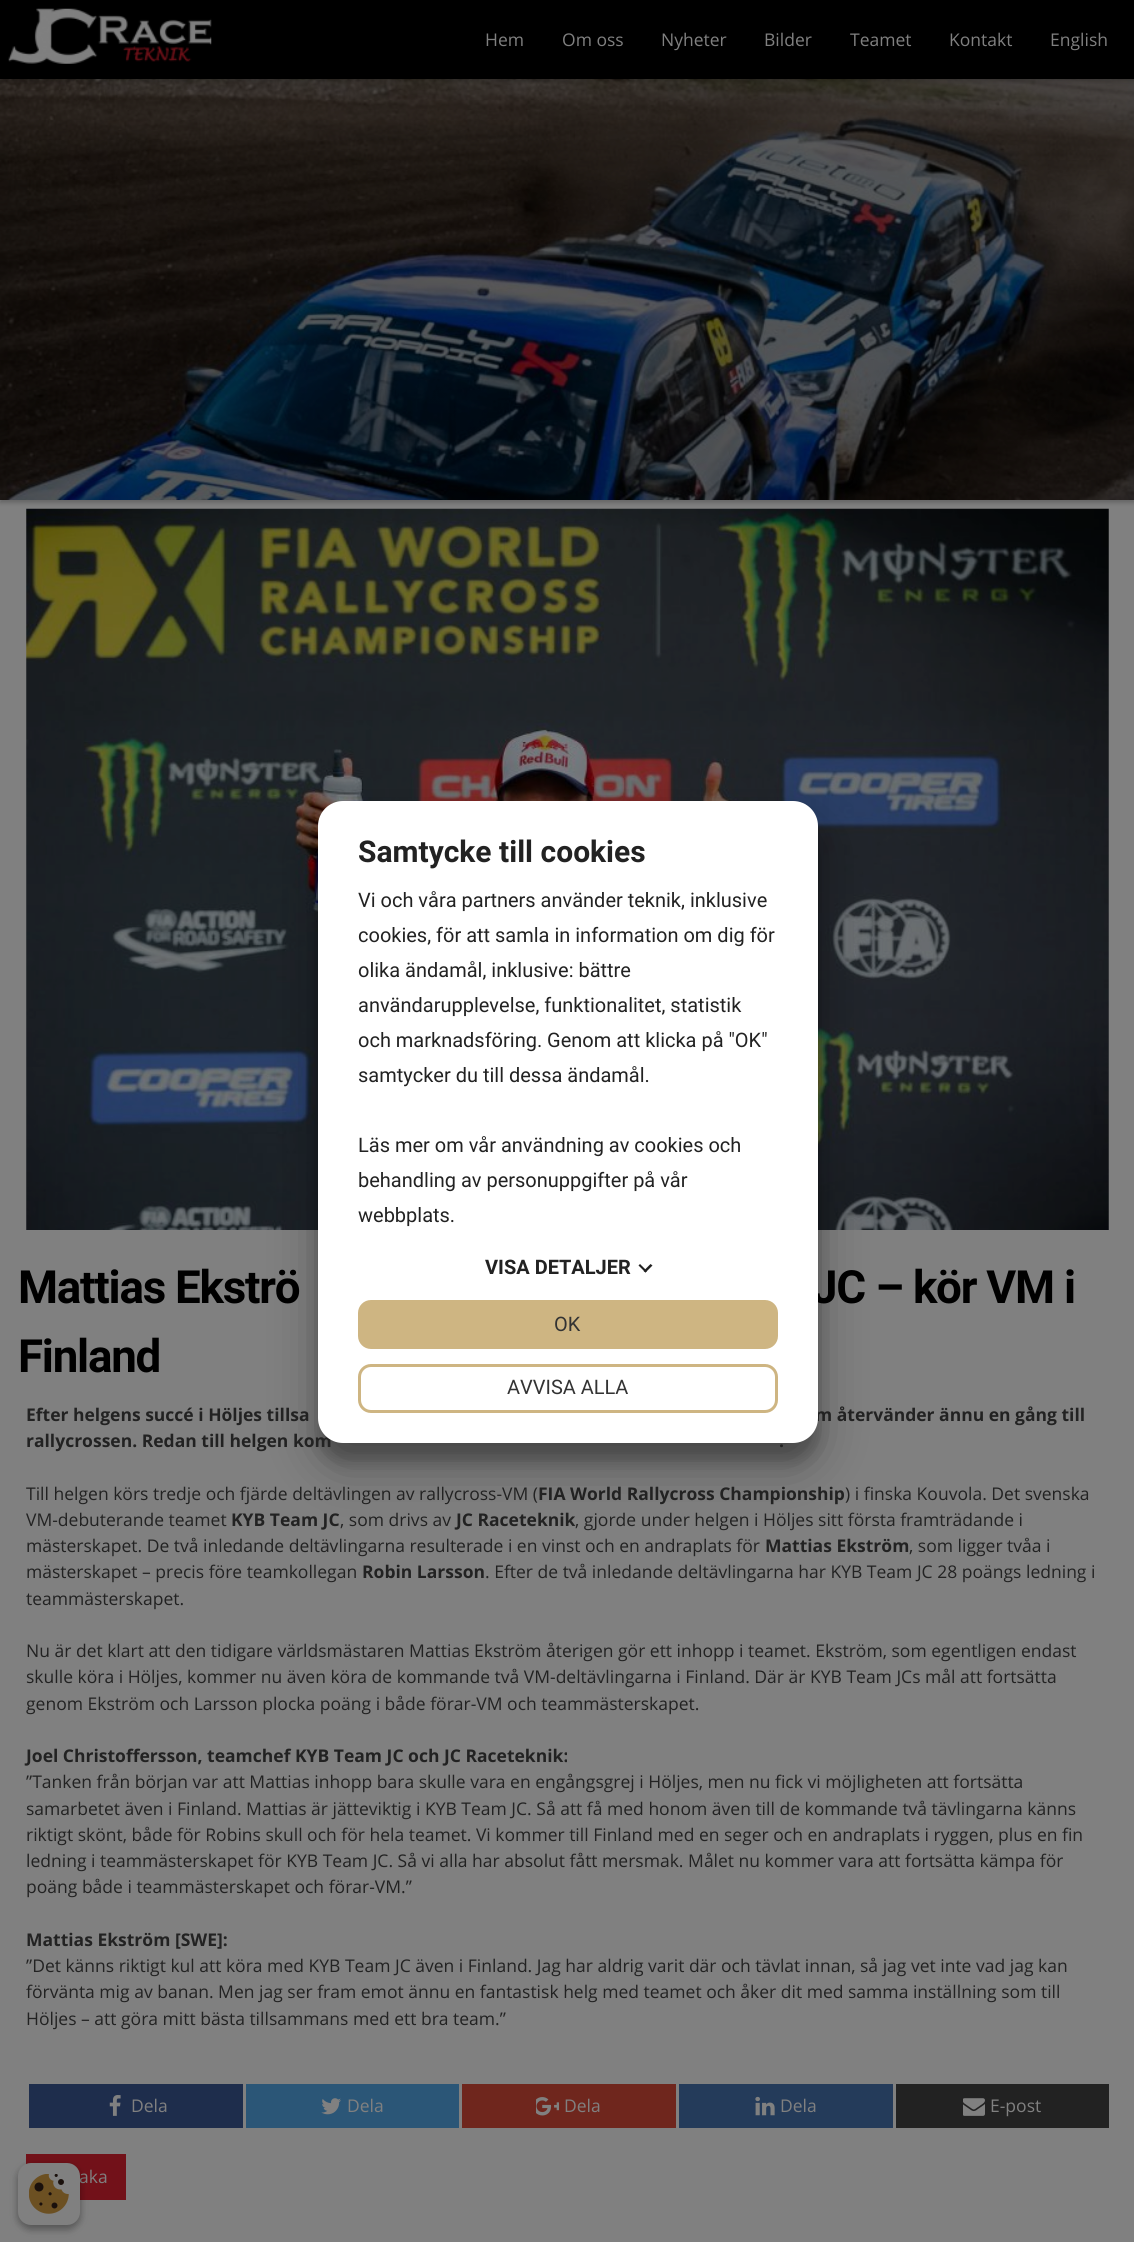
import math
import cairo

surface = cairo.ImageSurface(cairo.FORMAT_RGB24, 1134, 2242)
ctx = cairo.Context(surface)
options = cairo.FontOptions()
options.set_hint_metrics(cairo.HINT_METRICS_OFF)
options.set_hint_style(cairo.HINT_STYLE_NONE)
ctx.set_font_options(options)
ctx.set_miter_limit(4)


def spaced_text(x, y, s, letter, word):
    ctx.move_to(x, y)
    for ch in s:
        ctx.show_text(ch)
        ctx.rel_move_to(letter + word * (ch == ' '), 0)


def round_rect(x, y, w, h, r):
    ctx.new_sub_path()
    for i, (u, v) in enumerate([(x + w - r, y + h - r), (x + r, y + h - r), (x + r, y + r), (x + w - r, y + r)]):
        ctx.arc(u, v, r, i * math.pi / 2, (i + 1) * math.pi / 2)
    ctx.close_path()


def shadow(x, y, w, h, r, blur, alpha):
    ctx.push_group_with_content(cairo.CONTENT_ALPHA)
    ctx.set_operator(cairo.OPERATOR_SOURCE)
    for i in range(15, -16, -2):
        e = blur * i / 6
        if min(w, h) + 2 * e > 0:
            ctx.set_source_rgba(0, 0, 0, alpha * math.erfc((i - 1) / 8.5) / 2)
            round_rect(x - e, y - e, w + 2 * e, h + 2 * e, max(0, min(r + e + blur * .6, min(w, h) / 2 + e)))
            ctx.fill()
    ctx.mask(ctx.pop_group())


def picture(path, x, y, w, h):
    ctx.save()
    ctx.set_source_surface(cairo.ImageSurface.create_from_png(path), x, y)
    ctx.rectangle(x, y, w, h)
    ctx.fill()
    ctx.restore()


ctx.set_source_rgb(0.502, 0.502, 0.502)
ctx.paint()
ctx.set_source_rgb(0, 0, 0)
shadow(0, 3, 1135, 500, 0, 2, 0.2)
picture("img2.png", 0, 79, 1134, 421)
shadow(0, 3, 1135, 78, 0, 2, 0.2)
ctx.set_source_rgb(0, 0, 0)
ctx.rectangle(0, 0, 1134, 79)
ctx.fill()
picture("img1.png", 8, 8, 204, 56)
ctx.select_font_face("Open Sans")
ctx.set_font_size(17.5)
ctx.set_source_rgb(0.502, 0.502, 0.502)
ctx.move_to(485, 46)
ctx.show_text("Hem")
ctx.move_to(562, 46)
ctx.show_text("Om oss")
ctx.move_to(661, 46)
ctx.show_text("Nyheter")
ctx.move_to(764, 46)
ctx.show_text("Bilder")
ctx.move_to(850, 46)
ctx.show_text("Teamet")
ctx.move_to(949, 46)
ctx.show_text("Kontakt")
ctx.move_to(1050, 46)
ctx.show_text("English")
picture("img3.png", 26, 508, 1083, 722)
ctx.set_source_rgb(0, 0, 0)
shadow(318, 820, 500, 641, 25, 7.5, 0.22)
shadow(318, 825, 500, 641, 25, 24, 0.3)
ctx.select_font_face("Roboto", cairo.FONT_SLANT_NORMAL, cairo.FONT_WEIGHT_BOLD)
ctx.set_font_size(45.75)
ctx.set_source_rgb(0, 0, 0)
spaced_text(812, 1303, "JC – kör VM i", -1.25, 0)
ctx.select_font_face("Open Sans", cairo.FONT_SLANT_NORMAL, cairo.FONT_WEIGHT_BOLD)
ctx.set_font_size(17.5)
ctx.set_source_rgb(0.133, 0.133, 0.133)
ctx.move_to(815, 1421)
ctx.show_text("m återvänder ännu en gång till")
ctx.move_to(26, 1447)
ctx.show_text("rallycrossen. Redan till helgen kom")
ctx.set_source_rgb(1, 1, 1)
round_rect(318, 801, 500, 642, 25)
ctx.fill()
ctx.select_font_face("Roboto", cairo.FONT_SLANT_NORMAL, cairo.FONT_WEIGHT_BOLD)
ctx.set_font_size(30)
ctx.set_source_rgb(0.133, 0.133, 0.133)
ctx.move_to(358, 862)
ctx.show_text("Samtycke till cookies")
ctx.select_font_face("Roboto")
ctx.set_font_size(20)
ctx.move_to(358, 907)
ctx.show_text("Vi och våra partners använder teknik, inklusive")
ctx.move_to(358, 942)
ctx.show_text("cookies, för att samla in information om dig för")
ctx.move_to(358, 977)
ctx.show_text("olika ändamål, inklusive: bättre")
ctx.move_to(358, 1012)
ctx.show_text("användarupplevelse, funktionalitet, statistik")
ctx.move_to(358, 1047)
ctx.show_text("och marknadsföring. Genom att klicka på \"OK\"")
ctx.move_to(358, 1082)
ctx.show_text("samtycker du till dessa ändamål.")
ctx.move_to(358, 1152)
ctx.show_text("Läs mer om vår användning av cookies och")
ctx.move_to(358, 1187)
ctx.show_text("behandling av personuppgifter på vår")
ctx.move_to(358, 1222)
ctx.show_text("webbplats.")
ctx.select_font_face("Roboto", cairo.FONT_SLANT_NORMAL, cairo.FONT_WEIGHT_BOLD)
ctx.move_to(485, 1274)
ctx.show_text("VISA DETALJER")
ctx.set_source_rgb(0.129, 0.129, 0.129)
ctx.new_path()
ctx.move_to(650.5, 1264)
ctx.line_to(652.5, 1265.5)
ctx.line_to(645.5, 1272.5)
ctx.line_to(643.5, 1271)
ctx.close_path()
ctx.fill()
ctx.new_path()
ctx.move_to(640, 1264)
ctx.line_to(647, 1271)
ctx.line_to(645.5, 1272.5)
ctx.line_to(638.5, 1265.5)
ctx.close_path()
ctx.fill()
ctx.set_source_rgb(0.808, 0.71, 0.51)
round_rect(359.5, 1301.5, 417, 46, 11.5)
ctx.fill_preserve()
ctx.set_line_width(3)
ctx.stroke()
ctx.select_font_face("Roboto")
ctx.set_source_rgb(0.2, 0.2, 0.2)
ctx.move_to(554, 1331)
ctx.show_text("OK")
round_rect(359.5, 1365.5, 417, 46, 11.5)
ctx.set_source_rgb(0.808, 0.71, 0.51)
ctx.stroke()
ctx.set_source_rgb(0.2, 0.2, 0.2)
ctx.move_to(507, 1394)
ctx.show_text("AVVISA ALLA")
ctx.select_font_face("Roboto", cairo.FONT_SLANT_NORMAL, cairo.FONT_WEIGHT_BOLD)
ctx.set_font_size(45.75)
ctx.set_source_rgb(0, 0, 0)
spaced_text(18, 1303, "Mattias Ekströ", -1.25, 0)
spaced_text(18, 1372, "Finland", -1.25, 0)
ctx.select_font_face("Open Sans", cairo.FONT_SLANT_NORMAL, cairo.FONT_WEIGHT_BOLD)
ctx.set_font_size(17.5)
ctx.set_source_rgb(0.133, 0.133, 0.133)
ctx.move_to(26, 1421)
ctx.show_text("Efter helgens succé i Höljes tillsa")
ctx.move_to(779, 1447)
ctx.show_text(".")
ctx.select_font_face("Open Sans")
ctx.move_to(26, 1500)
ctx.show_text("Till helgen körs tredje och fjärde deltävlingen av rallycross-VM (")
ctx.select_font_face("Open Sans", cairo.FONT_SLANT_NORMAL, cairo.FONT_WEIGHT_BOLD)
ctx.move_to(538, 1500)
ctx.show_text("FIA World Rallycross Championship")
ctx.select_font_face("Open Sans")
ctx.move_to(845, 1500)
ctx.show_text(") i finska Kouvola. Det svenska")
ctx.move_to(26, 1526)
ctx.show_text("VM-debuterande teamet")
ctx.select_font_face("Open Sans", cairo.FONT_SLANT_NORMAL, cairo.FONT_WEIGHT_BOLD)
ctx.move_to(231, 1526)
ctx.show_text("KYB Team JC")
ctx.select_font_face("Open Sans")
ctx.move_to(340, 1526)
ctx.show_text(", som drivs av")
ctx.select_font_face("Open Sans", cairo.FONT_SLANT_NORMAL, cairo.FONT_WEIGHT_BOLD)
ctx.move_to(456, 1526)
ctx.show_text("JC Raceteknik")
ctx.select_font_face("Open Sans")
ctx.move_to(575, 1526)
ctx.show_text(", gjorde under helgen i Höljes sitt första framträdande i")
ctx.move_to(26, 1552)
ctx.show_text("mästerskapet. De två inledande deltävlingarna resulterade i en vinst och en andraplats för")
ctx.select_font_face("Open Sans", cairo.FONT_SLANT_NORMAL, cairo.FONT_WEIGHT_BOLD)
ctx.move_to(765, 1552)
ctx.show_text("Mattias Ekström")
ctx.select_font_face("Open Sans")
ctx.move_to(909, 1552)
ctx.show_text(", som ligger tvåa i")
ctx.move_to(26, 1578)
ctx.show_text("mästerskapet – precis före teamkollegan")
ctx.select_font_face("Open Sans", cairo.FONT_SLANT_NORMAL, cairo.FONT_WEIGHT_BOLD)
ctx.move_to(362, 1578)
ctx.show_text("Robin Larsson")
ctx.select_font_face("Open Sans")
ctx.move_to(485, 1578)
ctx.show_text(". Efter de två inledande deltävlingarna har KYB Team JC 28 poängs ledning i")
ctx.move_to(26, 1605)
ctx.show_text("teammästerskapet.")
ctx.move_to(26, 1657)
ctx.show_text("Nu är det klart att den tidigare världsmästaren Mattias Ekström återigen gör ett inhopp i teamet. Ekström, som egentligen endast")
ctx.move_to(26, 1683)
ctx.show_text("skulle köra i Höljes, kommer nu även köra de kommande två VM-deltävlingarna i Finland. Där är KYB Team JCs mål att fortsätta")
ctx.move_to(26, 1710)
ctx.show_text("genom Ekström och Larsson plocka poäng i både förar-VM och teammästerskapet.")
ctx.select_font_face("Open Sans", cairo.FONT_SLANT_NORMAL, cairo.FONT_WEIGHT_BOLD)
ctx.move_to(26, 1762)
ctx.show_text("Joel Christoffersson, teamchef KYB Team JC och JC Raceteknik:")
ctx.select_font_face("Open Sans")
ctx.move_to(26, 1788)
ctx.show_text("”Tanken från början var att Mattias inhopp bara skulle vara en engångsgrej i Höljes, men nu fick vi möjligheten att fortsätta")
ctx.move_to(26, 1815)
ctx.show_text("samarbetet även i Finland. Mattias är jätteviktig i KYB Team JC. Så att få med honom även till de kommande två tävlingarna känns")
ctx.move_to(26, 1841)
ctx.show_text("riktigt skönt, både för Robins skull och för hela teamet. Vi kommer till Finland med en seger och en andraplats i ryggen, plus en fin")
ctx.move_to(26, 1867)
ctx.show_text("ledning i teammästerskapet för KYB Team JC. Så vi alla har absolut fått mersmak. Målet nu kommer vara att fortsätta kämpa för")
ctx.move_to(26, 1893)
ctx.show_text("poäng både i teammästerskapet och förar-VM.”")
ctx.select_font_face("Open Sans", cairo.FONT_SLANT_NORMAL, cairo.FONT_WEIGHT_BOLD)
ctx.move_to(26, 1946)
ctx.show_text("Mattias Ekström [SWE]:")
ctx.select_font_face("Open Sans")
ctx.move_to(26, 1972)
ctx.show_text("”Det känns riktigt kul att köra med KYB Team JC även i Finland. Jag har aldrig varit där och tävlat innan, så jag vet inte vad jag kan")
ctx.move_to(26, 1998)
ctx.show_text("förvänta mig av banan. Men jag ser fram emot ännu en fantastisk helg med teamet och åker dit med samma inställning som till")
ctx.move_to(26, 2025)
ctx.show_text("Höljes – att göra mitt bästa tillsammans med ett bra team.”")
ctx.set_source_rgb(0.118, 0.176, 0.298)
ctx.rectangle(29, 2084, 214, 44)
ctx.fill()
picture("img4.png", 109, 2095, 12, 21)
ctx.set_source_rgb(0.502, 0.502, 0.502)
ctx.move_to(131, 2112)
ctx.show_text("Dela")
ctx.set_source_rgb(0.169, 0.337, 0.467)
ctx.rectangle(246, 2084, 213, 44)
ctx.fill()
picture("img5.png", 321, 2098, 20, 17)
ctx.set_source_rgb(0.502, 0.502, 0.502)
ctx.move_to(347, 2112)
ctx.show_text("Dela")
ctx.set_source_rgb(0.435, 0.149, 0.114)
ctx.rectangle(462, 2084, 214, 44)
ctx.fill()
picture("img6.png", 536, 2097, 23, 19)
ctx.set_source_rgb(0.502, 0.502, 0.502)
ctx.move_to(564, 2112)
ctx.show_text("Dela")
ctx.set_source_rgb(0.141, 0.231, 0.353)
ctx.rectangle(679, 2084, 214, 44)
ctx.fill()
picture("img7.png", 755, 2096, 20, 20)
ctx.set_source_rgb(0.502, 0.502, 0.502)
ctx.move_to(780, 2112)
ctx.show_text("Dela")
ctx.set_source_rgb(0.133, 0.133, 0.133)
ctx.rectangle(896, 2084, 213, 44)
ctx.fill()
picture("img8.png", 963, 2098, 22, 18)
ctx.set_source_rgb(0.502, 0.502, 0.502)
ctx.move_to(990, 2112)
ctx.show_text("E-post")
ctx.set_source_rgb(0.447, 0.067, 0.098)
ctx.rectangle(26, 2154, 100, 46)
ctx.fill()
ctx.set_source_rgb(0.502, 0.502, 0.502)
ctx.move_to(79, 2183)
ctx.show_text("aka")
ctx.set_source_rgb(0, 0, 0)
shadow(18, 2166, 62, 63, 13, 4, 0.23)
shadow(18, 2166, 62, 63, 13, 4, 0.16)
ctx.set_source_rgb(0.502, 0.502, 0.502)
round_rect(18, 2163, 62, 62, 13)
ctx.fill()
picture("img9.png", 29, 2174, 40, 40)
surface.write_to_png("page.png")
